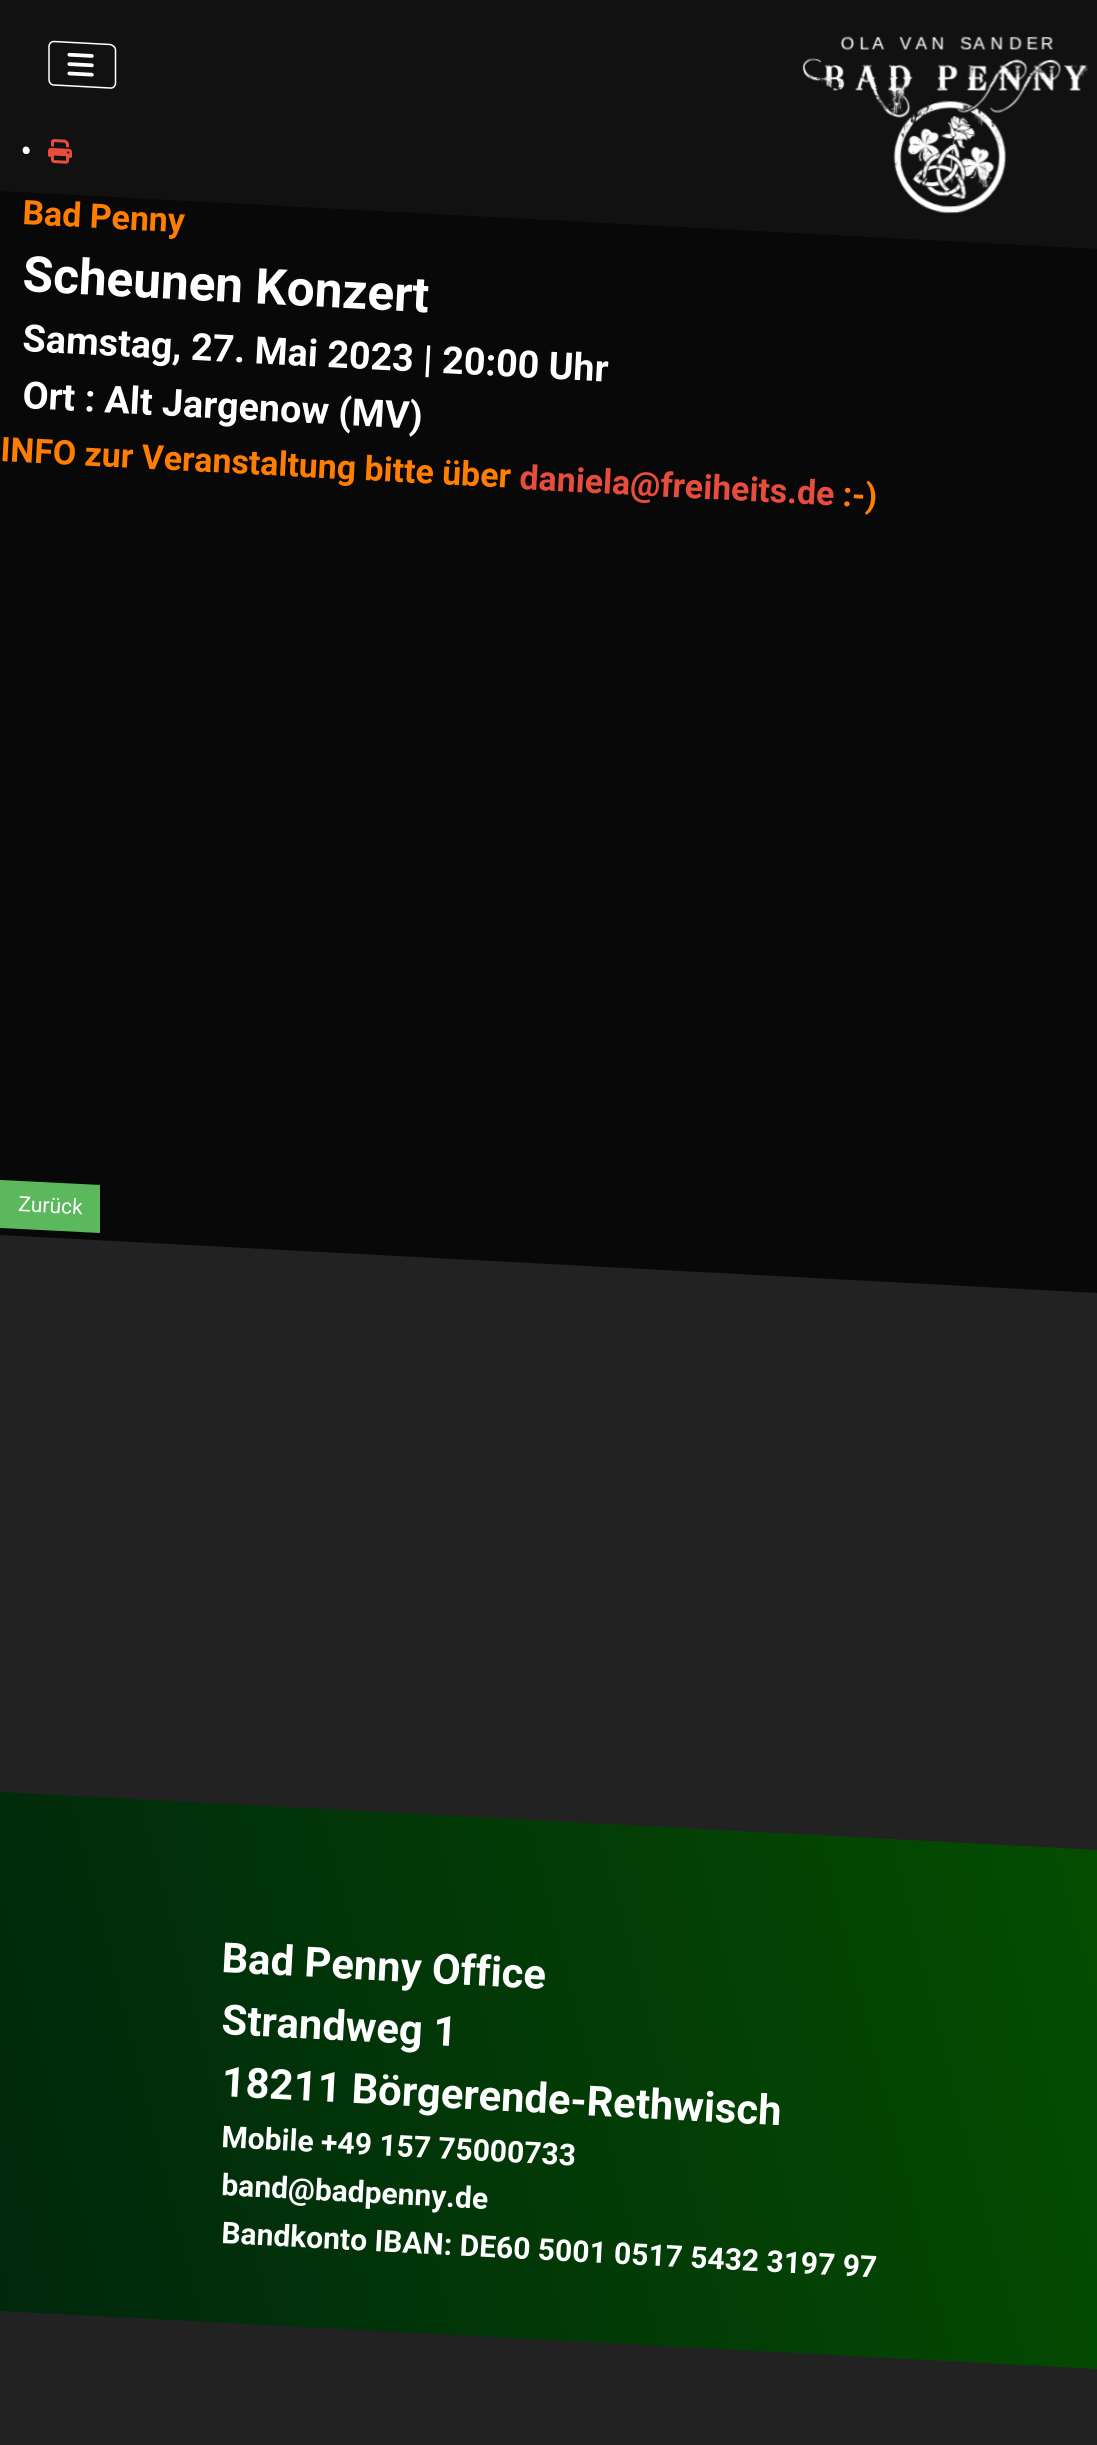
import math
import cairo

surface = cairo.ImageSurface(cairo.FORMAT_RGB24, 1097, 2445)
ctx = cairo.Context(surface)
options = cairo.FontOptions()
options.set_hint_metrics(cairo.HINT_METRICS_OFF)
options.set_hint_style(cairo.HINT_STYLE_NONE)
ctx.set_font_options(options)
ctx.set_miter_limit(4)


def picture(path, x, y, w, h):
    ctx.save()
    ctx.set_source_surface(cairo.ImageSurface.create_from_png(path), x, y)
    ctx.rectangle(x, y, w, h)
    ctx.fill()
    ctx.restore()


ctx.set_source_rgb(0.133, 0.133, 0.133)
ctx.paint()
ctx.set_source_rgb(0.067, 0.067, 0.067)
ctx.new_path()
ctx.move_to(0, 107)
ctx.line_to(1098, 165)
ctx.line_to(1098, 1293)
ctx.line_to(0, 1235)
ctx.close_path()
ctx.fill()
ctx.set_source_rgb(1, 1, 1)
ctx.new_path()
ctx.move_to(26, 146.5)
ctx.curve_to(31, 147, 31, 154.5, 26, 154)
ctx.curve_to(21.5, 154, 21.5, 146.5, 26, 146.5)
ctx.close_path()
ctx.fill()
picture("img3.png", 48, 139, 24, 25)
ctx.set_source_rgba(0, 0, 0, 0.5)
ctx.new_path()
ctx.move_to(0, -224)
ctx.line_to(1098, -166)
ctx.line_to(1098, 165)
ctx.line_to(0, 107)
ctx.close_path()
ctx.fill()
ctx.new_path()
ctx.move_to(54, 41.5)
ctx.line_to(110, 44.5)
ctx.curve_to(113, 45, 115.5, 47.5, 115.5, 50)
ctx.line_to(115.5, 83)
ctx.curve_to(115.5, 86, 113, 88.5, 110, 88)
ctx.line_to(54, 85)
ctx.curve_to(51, 85, 49, 82.5, 49, 79.5)
ctx.line_to(49, 46.5)
ctx.curve_to(49, 44, 51, 41.5, 54, 41.5)
ctx.close_path()
ctx.set_source_rgb(1, 1, 1)
ctx.set_line_width(1.5)
ctx.stroke()
picture("img1.png", 67, 52, 27, 25)
ctx.set_source_rgba(0, 0, 0, 0.5)
ctx.new_path()
ctx.move_to(0, 191)
ctx.line_to(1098, 249)
ctx.line_to(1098, 1293)
ctx.line_to(0, 1235)
ctx.close_path()
ctx.fill()
picture("img2.png", 802, 36, 287, 178)
ctx.select_font_face("Roboto", cairo.FONT_SLANT_NORMAL, cairo.FONT_WEIGHT_BOLD)
ctx.set_font_size(33.9)
ctx.set_source_rgb(1, 0.49, 0)
ctx.save()
ctx.translate(22, 224)
ctx.rotate(3 * math.pi / 180)
ctx.move_to(0, 0)
ctx.show_text("Bad Penny")
ctx.restore()
ctx.set_font_size(49.5)
ctx.set_source_rgb(1, 1, 1)
ctx.save()
ctx.translate(22, 291)
ctx.rotate(3 * math.pi / 180)
ctx.move_to(0, 0)
ctx.show_text("Scheunen Konzert")
ctx.restore()
ctx.set_font_size(37.75)
ctx.save()
ctx.translate(22, 351)
ctx.rotate(3 * math.pi / 180)
ctx.move_to(0, 0)
ctx.show_text("Samstag, 27. Mai 2023 | 20:00 Uhr")
ctx.restore()
ctx.save()
ctx.translate(22, 408)
ctx.rotate(3 * math.pi / 180)
ctx.move_to(0, 0)
ctx.show_text("Ort : Alt Jargenow (MV)")
ctx.restore()
ctx.set_font_size(33.9)
ctx.set_source_rgb(1, 0.49, 0)
ctx.save()
ctx.translate(0, 461)
ctx.rotate(3 * math.pi / 180)
ctx.move_to(0, 0)
ctx.show_text("INFO zur Veranstaltung bitte über")
ctx.restore()
ctx.set_source_rgb(0.906, 0.298, 0.235)
ctx.save()
ctx.translate(519, 489)
ctx.rotate(3 * math.pi / 180)
ctx.move_to(0, 0)
ctx.show_text("daniela@freiheits.de")
ctx.restore()
ctx.set_source_rgb(1, 0.49, 0)
ctx.save()
ctx.translate(842, 506)
ctx.rotate(3 * math.pi / 180)
ctx.move_to(0, 0)
ctx.show_text(":-)")
ctx.restore()
ctx.set_source_rgb(0.361, 0.722, 0.361)
ctx.new_path()
ctx.move_to(0, 1180)
ctx.line_to(100, 1185)
ctx.line_to(100, 1233)
ctx.line_to(0, 1228)
ctx.close_path()
ctx.fill()
ctx.select_font_face("Roboto")
ctx.set_font_size(21)
ctx.set_source_rgb(1, 1, 1)
ctx.save()
ctx.translate(18, 1211)
ctx.rotate(3 * math.pi / 180)
ctx.move_to(0, 0)
ctx.show_text("Zurück")
ctx.restore()
gradient = cairo.LinearGradient(-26, 2226, 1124, 1935)
gradient.add_color_stop_rgba(0, 0, 0.153, 0.051, 1)
gradient.add_color_stop_rgba(1, 0.016, 0.302, 0, 1)
ctx.set_source(gradient)
ctx.new_path()
ctx.move_to(0, 1792)
ctx.line_to(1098, 1850)
ctx.line_to(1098, 2369)
ctx.line_to(0, 2311)
ctx.close_path()
ctx.fill()
ctx.select_font_face("Roboto", cairo.FONT_SLANT_NORMAL, cairo.FONT_WEIGHT_BOLD)
ctx.set_font_size(41.75)
ctx.set_source_rgb(1, 1, 1)
ctx.save()
ctx.translate(221, 1972)
ctx.rotate(3 * math.pi / 180)
ctx.move_to(0, 0)
ctx.show_text("Bad Penny Office")
ctx.restore()
ctx.save()
ctx.translate(221, 2034)
ctx.rotate(3 * math.pi / 180)
ctx.move_to(0, 0)
ctx.show_text("Strandweg 1")
ctx.restore()
ctx.save()
ctx.translate(221, 2096)
ctx.rotate(3 * math.pi / 180)
ctx.move_to(0, 0)
ctx.show_text("18211 Börgerende-Rethwisch")
ctx.restore()
ctx.set_font_size(30)
ctx.save()
ctx.translate(221, 2147)
ctx.rotate(3 * math.pi / 180)
ctx.move_to(0, 0)
ctx.show_text("Mobile +49 157 75000733")
ctx.restore()
ctx.save()
ctx.translate(221, 2195)
ctx.rotate(3 * math.pi / 180)
ctx.move_to(0, 0)
ctx.show_text("band@badpenny.de")
ctx.restore()
ctx.save()
ctx.translate(221, 2243)
ctx.rotate(3 * math.pi / 180)
ctx.move_to(0, 0)
ctx.show_text("Bandkonto IBAN: DE60 5001 0517 5432 3197 97")
ctx.restore()
surface.write_to_png("page.png")
